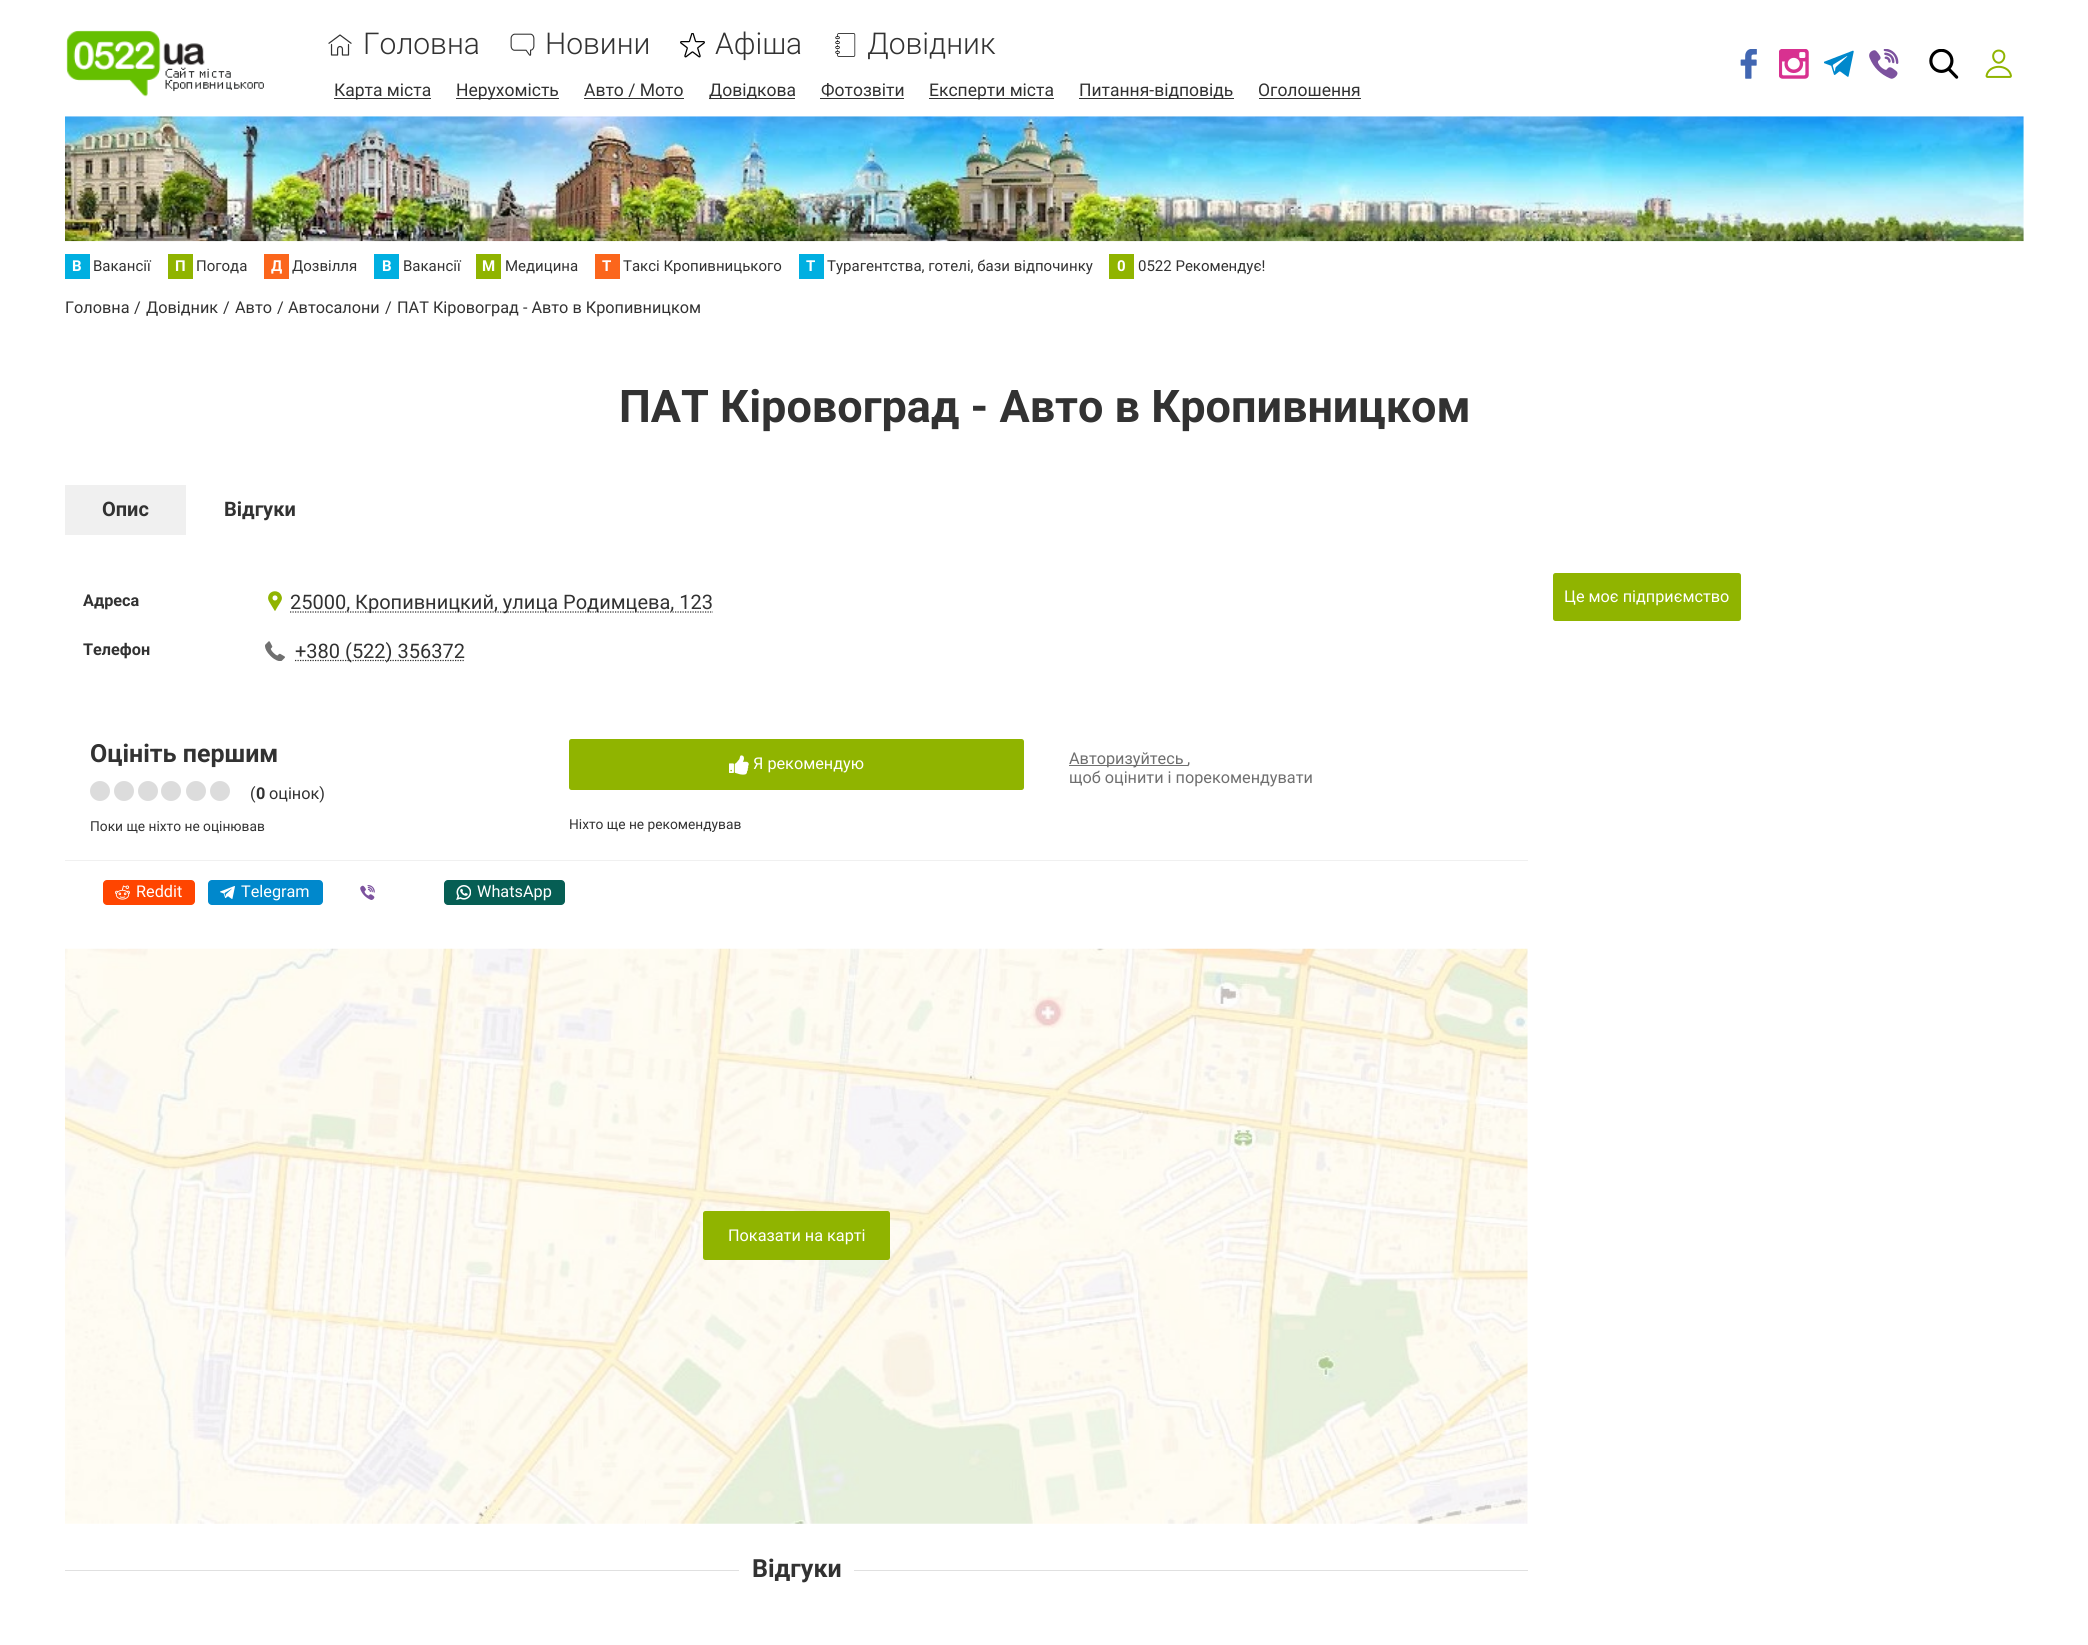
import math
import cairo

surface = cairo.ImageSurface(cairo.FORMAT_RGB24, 2088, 1645)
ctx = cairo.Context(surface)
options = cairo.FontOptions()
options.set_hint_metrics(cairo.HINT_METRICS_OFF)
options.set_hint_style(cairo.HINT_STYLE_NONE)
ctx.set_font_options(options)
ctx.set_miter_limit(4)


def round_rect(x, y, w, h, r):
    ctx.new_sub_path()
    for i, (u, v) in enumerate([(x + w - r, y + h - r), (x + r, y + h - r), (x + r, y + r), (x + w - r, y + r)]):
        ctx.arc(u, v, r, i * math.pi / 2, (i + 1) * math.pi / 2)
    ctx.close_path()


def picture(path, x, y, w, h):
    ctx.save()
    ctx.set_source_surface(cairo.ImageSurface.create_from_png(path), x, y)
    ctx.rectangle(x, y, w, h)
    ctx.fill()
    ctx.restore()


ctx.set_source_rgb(1, 1, 1)
ctx.paint()
picture("img1.png", 66, 30, 198, 67)
picture("img2.png", 328, 34, 24, 22)
ctx.select_font_face("Roboto Light")
ctx.set_font_size(30)
ctx.set_source_rgb(0.196, 0.196, 0.196)
ctx.move_to(363, 54)
ctx.show_text("Головна")
picture("img3.png", 510, 33, 25, 23)
ctx.move_to(545, 54)
ctx.show_text("Новини")
picture("img4.png", 680, 33, 25, 25)
ctx.move_to(715, 54)
ctx.show_text("Афіша")
picture("img5.png", 835, 33, 21, 24)
ctx.move_to(867, 54)
ctx.show_text("Довідник")
ctx.rectangle(334, 98, 97, 1)
ctx.fill()
ctx.select_font_face("Roboto")
ctx.set_font_size(17.5)
ctx.move_to(334, 96)
ctx.show_text("Карта міста")
ctx.rectangle(456, 98, 103, 1)
ctx.fill()
ctx.move_to(456, 96)
ctx.show_text("Нерухомість")
ctx.move_to(584, 96)
ctx.show_text("Авто / Мото")
ctx.rectangle(584, 98, 100, 1)
ctx.fill()
ctx.rectangle(709, 98, 86, 1)
ctx.fill()
ctx.move_to(709, 96)
ctx.show_text("Довідкова")
ctx.move_to(821, 96)
ctx.show_text("Фотозвіти")
ctx.rectangle(820, 98, 84, 1)
ctx.fill()
ctx.rectangle(929, 98, 125, 1)
ctx.fill()
ctx.move_to(929, 96)
ctx.show_text("Експерти міста")
ctx.rectangle(1079, 98, 155, 1)
ctx.fill()
ctx.move_to(1079, 96)
ctx.show_text("Питання-відповідь")
ctx.move_to(1258, 96)
ctx.show_text("Оголошення")
ctx.rectangle(1259, 98, 102, 1)
ctx.fill()
picture("img6.png", 1740, 49, 17, 30)
picture("img7.png", 1779, 49, 30, 30)
picture("img8.png", 1824, 50, 30, 27)
picture("img9.png", 1869, 49, 30, 30)
picture("img10.png", 1929, 49, 30, 30)
picture("img11.png", 1985, 49, 27, 29)
picture("img12.png", 65, 116, 1959, 126)
ctx.set_source_rgb(0, 0.686, 0.882)
ctx.rectangle(65, 254, 25, 25)
ctx.fill()
ctx.select_font_face("Roboto", cairo.FONT_SLANT_NORMAL, cairo.FONT_WEIGHT_BOLD)
ctx.set_font_size(15)
ctx.set_source_rgb(1, 1, 1)
ctx.move_to(72, 271)
ctx.show_text("В")
ctx.select_font_face("Roboto")
ctx.set_source_rgb(0.196, 0.196, 0.196)
ctx.move_to(93, 271)
ctx.show_text("Вакансії")
ctx.set_source_rgb(0.565, 0.706, 0)
ctx.rectangle(168, 254, 25, 25)
ctx.fill()
ctx.select_font_face("Roboto", cairo.FONT_SLANT_NORMAL, cairo.FONT_WEIGHT_BOLD)
ctx.set_source_rgb(1, 1, 1)
ctx.move_to(175, 271)
ctx.show_text("П")
ctx.select_font_face("Roboto")
ctx.set_source_rgb(0.196, 0.196, 0.196)
ctx.move_to(196, 271)
ctx.show_text("Погода")
ctx.set_source_rgb(0.984, 0.4, 0.11)
ctx.rectangle(264, 254, 25, 25)
ctx.fill()
ctx.select_font_face("Roboto", cairo.FONT_SLANT_NORMAL, cairo.FONT_WEIGHT_BOLD)
ctx.set_source_rgb(1, 1, 1)
ctx.move_to(271, 271)
ctx.show_text("Д")
ctx.select_font_face("Roboto")
ctx.set_source_rgb(0.196, 0.196, 0.196)
ctx.move_to(292, 271)
ctx.show_text("Дозвілля")
ctx.set_source_rgb(0, 0.686, 0.882)
ctx.rectangle(374, 254, 25, 25)
ctx.fill()
ctx.select_font_face("Roboto", cairo.FONT_SLANT_NORMAL, cairo.FONT_WEIGHT_BOLD)
ctx.set_source_rgb(1, 1, 1)
ctx.move_to(382, 271)
ctx.show_text("В")
ctx.select_font_face("Roboto")
ctx.set_source_rgb(0.196, 0.196, 0.196)
ctx.move_to(403, 271)
ctx.show_text("Вакансії")
ctx.set_source_rgb(0.565, 0.706, 0)
ctx.rectangle(476, 254, 25, 25)
ctx.fill()
ctx.select_font_face("Roboto", cairo.FONT_SLANT_NORMAL, cairo.FONT_WEIGHT_BOLD)
ctx.set_source_rgb(1, 1, 1)
ctx.move_to(482, 271)
ctx.show_text("М")
ctx.select_font_face("Roboto")
ctx.set_source_rgb(0.196, 0.196, 0.196)
ctx.move_to(505, 271)
ctx.show_text("Медицина")
ctx.set_source_rgb(0.984, 0.4, 0.11)
ctx.rectangle(595, 254, 25, 25)
ctx.fill()
ctx.select_font_face("Roboto", cairo.FONT_SLANT_NORMAL, cairo.FONT_WEIGHT_BOLD)
ctx.set_source_rgb(1, 1, 1)
ctx.move_to(602, 271)
ctx.show_text("Т")
ctx.select_font_face("Roboto")
ctx.set_source_rgb(0.196, 0.196, 0.196)
ctx.move_to(623, 271)
ctx.show_text("Таксі Кропивницького")
ctx.set_source_rgb(0, 0.686, 0.882)
ctx.rectangle(799, 254, 25, 25)
ctx.fill()
ctx.select_font_face("Roboto", cairo.FONT_SLANT_NORMAL, cairo.FONT_WEIGHT_BOLD)
ctx.set_source_rgb(1, 1, 1)
ctx.move_to(806, 271)
ctx.show_text("Т")
ctx.select_font_face("Roboto")
ctx.set_source_rgb(0.196, 0.196, 0.196)
ctx.move_to(827, 271)
ctx.show_text("Турагентства, готелі, бази відпочинку")
ctx.set_source_rgb(0.565, 0.706, 0)
ctx.rectangle(1109, 254, 25, 25)
ctx.fill()
ctx.select_font_face("Roboto", cairo.FONT_SLANT_NORMAL, cairo.FONT_WEIGHT_BOLD)
ctx.set_source_rgb(1, 1, 1)
ctx.move_to(1117, 271)
ctx.show_text("0")
ctx.select_font_face("Roboto")
ctx.set_source_rgb(0.196, 0.196, 0.196)
ctx.move_to(1138, 271)
ctx.show_text("0522 Рекомендує!")
ctx.set_font_size(16.25)
ctx.move_to(65, 313)
ctx.show_text("Головна")
ctx.move_to(134, 313)
ctx.show_text("/")
ctx.move_to(146, 313)
ctx.show_text("Довідник")
ctx.move_to(223, 313)
ctx.show_text("/")
ctx.move_to(235, 313)
ctx.show_text("Авто")
ctx.move_to(277, 313)
ctx.show_text("/")
ctx.move_to(288, 313)
ctx.show_text("Автосалони")
ctx.move_to(385, 313)
ctx.show_text("/")
ctx.move_to(397, 313)
ctx.show_text("ПАТ Кіровоград - Авто в Кропивницком")
ctx.select_font_face("Roboto", cairo.FONT_SLANT_NORMAL, cairo.FONT_WEIGHT_BOLD)
ctx.set_font_size(45)
ctx.move_to(619, 422)
ctx.show_text("ПАТ Кіровоград - Авто в Кропивницком")
ctx.set_source_rgb(0.941, 0.941, 0.941)
ctx.rectangle(65, 485, 121, 50)
ctx.fill()
ctx.set_font_size(20)
ctx.set_source_rgb(0.196, 0.196, 0.196)
ctx.move_to(102, 516)
ctx.show_text("Опис")
ctx.move_to(224, 516)
ctx.show_text("Відгуки")
ctx.set_font_size(16.25)
ctx.move_to(83, 606)
ctx.show_text("Адреса")
picture("img13.png", 268, 591, 14, 20)
ctx.new_path()
ctx.move_to(290, 612)
ctx.line_to(713, 612)
ctx.set_line_width(1.2)
ctx.set_dash([1.25, 1.25])
ctx.stroke()
ctx.select_font_face("Roboto")
ctx.set_font_size(20)
ctx.move_to(290, 609)
ctx.show_text("25000, Кропивницкий, улица Родимцева, 123")
ctx.select_font_face("Roboto", cairo.FONT_SLANT_NORMAL, cairo.FONT_WEIGHT_BOLD)
ctx.set_font_size(16.25)
ctx.move_to(83, 655)
ctx.show_text("Телефон")
picture("img14.png", 265, 641, 20, 20)
ctx.new_path()
ctx.move_to(295, 660.5)
ctx.line_to(464.5, 660.5)
ctx.stroke()
ctx.select_font_face("Roboto")
ctx.set_font_size(20)
ctx.move_to(295, 658)
ctx.show_text("+380 (522) 356372")
ctx.select_font_face("Roboto", cairo.FONT_SLANT_NORMAL, cairo.FONT_WEIGHT_BOLD)
ctx.set_font_size(25)
ctx.move_to(90, 762)
ctx.show_text("Оцініть першим")
ctx.set_source_rgb(0.863, 0.863, 0.863)
ctx.new_path()
ctx.arc(100, 791, 10, 0, 2 * math.pi)
ctx.fill()
ctx.arc(124, 791, 10, 0, 2 * math.pi)
ctx.fill()
ctx.arc(148, 791, 10, 0, 2 * math.pi)
ctx.fill()
ctx.arc(171, 791, 10, 0, 2 * math.pi)
ctx.fill()
ctx.arc(196, 791, 10, 0, 2 * math.pi)
ctx.fill()
ctx.arc(220, 791, 10, 0, 2 * math.pi)
ctx.fill()
ctx.select_font_face("Roboto")
ctx.set_font_size(16.25)
ctx.set_source_rgb(0.196, 0.196, 0.196)
ctx.move_to(250, 799)
ctx.show_text("(")
ctx.select_font_face("Roboto", cairo.FONT_SLANT_NORMAL, cairo.FONT_WEIGHT_BOLD)
ctx.move_to(256, 799)
ctx.show_text("0")
ctx.select_font_face("Roboto")
ctx.move_to(269, 799)
ctx.show_text("оцінок)")
ctx.set_font_size(13.75)
ctx.move_to(90, 831)
ctx.show_text("Поки ще ніхто не оцінював")
ctx.set_source_rgb(0.565, 0.706, 0)
round_rect(569, 739, 455, 51, 2.5)
ctx.fill()
picture("img15.png", 729, 755, 20, 20)
ctx.set_font_size(16.25)
ctx.set_source_rgb(1, 1, 1)
ctx.move_to(753, 769)
ctx.show_text("Я рекомендую")
ctx.set_font_size(13.75)
ctx.set_source_rgb(0.196, 0.196, 0.196)
ctx.move_to(569, 829)
ctx.show_text("Ніхто ще не рекомендував")
ctx.set_source_rgb(0.439, 0.439, 0.439)
ctx.rectangle(1069, 765, 119, 1)
ctx.fill()
ctx.set_font_size(16.25)
ctx.set_source_rgb(0.435, 0.435, 0.435)
ctx.move_to(1069, 764)
ctx.show_text("Авторизуйтесь")
ctx.move_to(1187, 764)
ctx.show_text(",")
ctx.move_to(1069, 783)
ctx.show_text("щоб оцінити і порекомендувати")
ctx.set_source_rgb(0.941, 0.941, 0.941)
ctx.rectangle(65, 860, 1463, 1)
ctx.fill()
ctx.set_source_rgb(1, 0.271, 0)
round_rect(103, 880, 92, 25, 4)
ctx.fill()
picture("img16.png", 115, 885, 15, 15)
ctx.set_source_rgb(1, 1, 1)
ctx.move_to(136, 897)
ctx.show_text("Reddit")
ctx.set_source_rgb(0, 0.533, 0.8)
round_rect(208, 880, 115, 25, 4)
ctx.fill()
picture("img17.png", 220, 886, 15, 13)
ctx.set_source_rgb(1, 1, 1)
ctx.move_to(241, 897)
ctx.show_text("Telegram")
picture("img18.png", 360, 885, 15, 15)
ctx.set_source_rgb(0.027, 0.369, 0.329)
round_rect(444, 880, 121, 25, 4)
ctx.fill()
picture("img19.png", 456, 885, 15, 15)
ctx.set_source_rgb(1, 1, 1)
ctx.move_to(477, 897)
ctx.show_text("WhatsApp")
picture("img20.png", 65, 948, 1463, 576)
ctx.set_source_rgb(0.565, 0.706, 0)
round_rect(703, 1211, 187, 49, 2.5)
ctx.fill()
ctx.set_source_rgb(1, 1, 1)
ctx.move_to(728, 1241)
ctx.show_text("Показати на карті")
ctx.set_source_rgb(0.565, 0.706, 0)
round_rect(1553, 573, 188, 48, 2.5)
ctx.fill()
ctx.set_source_rgb(1, 1, 1)
ctx.move_to(1564, 602)
ctx.show_text("Це моє підприємство")
ctx.set_source_rgb(0.878, 0.878, 0.878)
ctx.rectangle(65, 1570, 674, 1)
ctx.fill()
ctx.select_font_face("Roboto", cairo.FONT_SLANT_NORMAL, cairo.FONT_WEIGHT_BOLD)
ctx.set_font_size(25)
ctx.set_source_rgb(0.196, 0.196, 0.196)
ctx.move_to(752, 1577)
ctx.show_text("Відгуки")
ctx.set_source_rgb(0.878, 0.878, 0.878)
ctx.rectangle(854, 1570, 674, 1)
ctx.fill()
surface.write_to_png("page.png")
